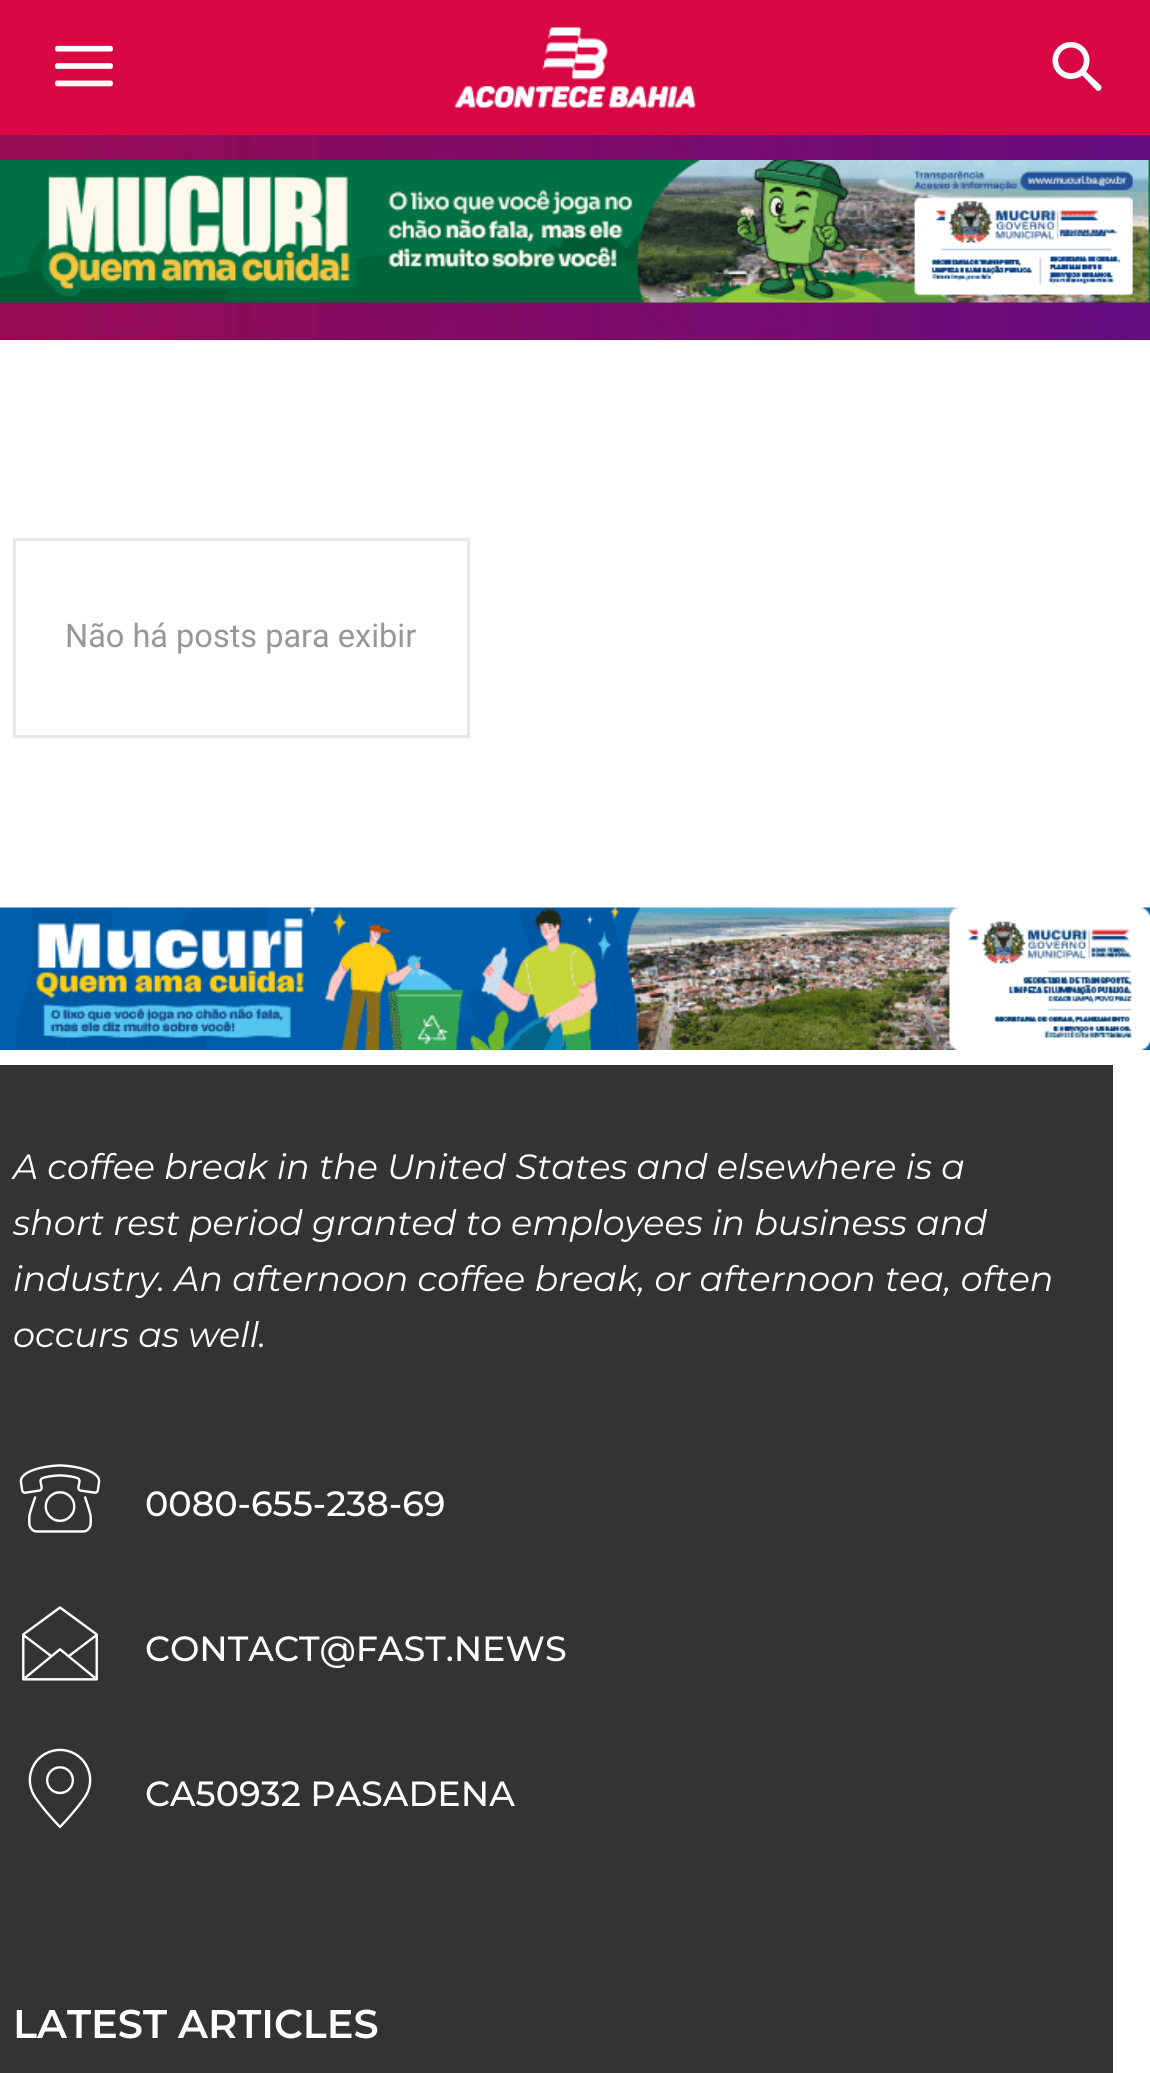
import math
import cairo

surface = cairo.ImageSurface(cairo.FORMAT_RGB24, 1150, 2073)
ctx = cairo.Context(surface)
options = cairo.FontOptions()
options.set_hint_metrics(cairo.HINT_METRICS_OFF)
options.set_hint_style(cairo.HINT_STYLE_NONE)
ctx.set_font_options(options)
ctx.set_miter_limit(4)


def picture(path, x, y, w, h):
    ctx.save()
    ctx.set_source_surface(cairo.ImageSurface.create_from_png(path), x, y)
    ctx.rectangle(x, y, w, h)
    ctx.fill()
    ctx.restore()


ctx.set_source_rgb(1, 1, 1)
ctx.paint()
ctx.set_source_rgb(0.851, 0.031, 0.267)
ctx.rectangle(0, 0, 1150, 135)
ctx.fill()
picture("img1.png", 55, 45, 58, 42)
picture("img2.png", 454, 27, 242, 81)
picture("img3.png", 1052, 42, 50, 49)
picture("img4.png", 0, 135, 1150, 205)
picture("img5.png", 0, 160, 1150, 143)
ctx.rectangle(14.5, 539.5, 454, 197)
ctx.set_source_rgb(0.91, 0.91, 0.91)
ctx.set_line_width(3)
ctx.stroke()
ctx.select_font_face("Roboto")
ctx.set_font_size(32.5)
ctx.set_source_rgb(0.592, 0.592, 0.592)
ctx.move_to(65, 647)
ctx.show_text("Não há posts para exibir")
picture("img6.png", 0, 907, 1150, 143)
ctx.set_source_rgb(0.2, 0.2, 0.2)
ctx.rectangle(0, 1065, 1113, 1008)
ctx.fill()
ctx.select_font_face("Montserrat", cairo.FONT_SLANT_ITALIC)
ctx.set_font_size(35)
ctx.set_source_rgb(1, 1, 1)
ctx.move_to(13, 1179)
ctx.show_text("A coffee break in the United States and elsewhere is a")
ctx.move_to(13, 1235)
ctx.show_text("short rest period granted to employees in business and")
ctx.move_to(13, 1291)
ctx.show_text("industry. An afternoon coffee break, or afternoon tea, often")
ctx.move_to(13, 1347)
ctx.show_text("occurs as well.")
picture("img7.png", 19, 1464, 82, 69)
ctx.select_font_face("Montserrat Medium")
ctx.move_to(145, 1516)
ctx.show_text("0080-655-238-69")
picture("img8.png", 22, 1606, 76, 75)
ctx.move_to(145, 1661)
ctx.show_text("CONTACT@FAST.NEWS")
picture("img9.png", 28, 1748, 64, 81)
ctx.move_to(145, 1806)
ctx.show_text("CA50932 PASADENA")
ctx.select_font_face("Montserrat SemiBold")
ctx.set_font_size(40)
ctx.move_to(13, 2038)
ctx.show_text("LATEST ARTICLES")
surface.write_to_png("page.png")
